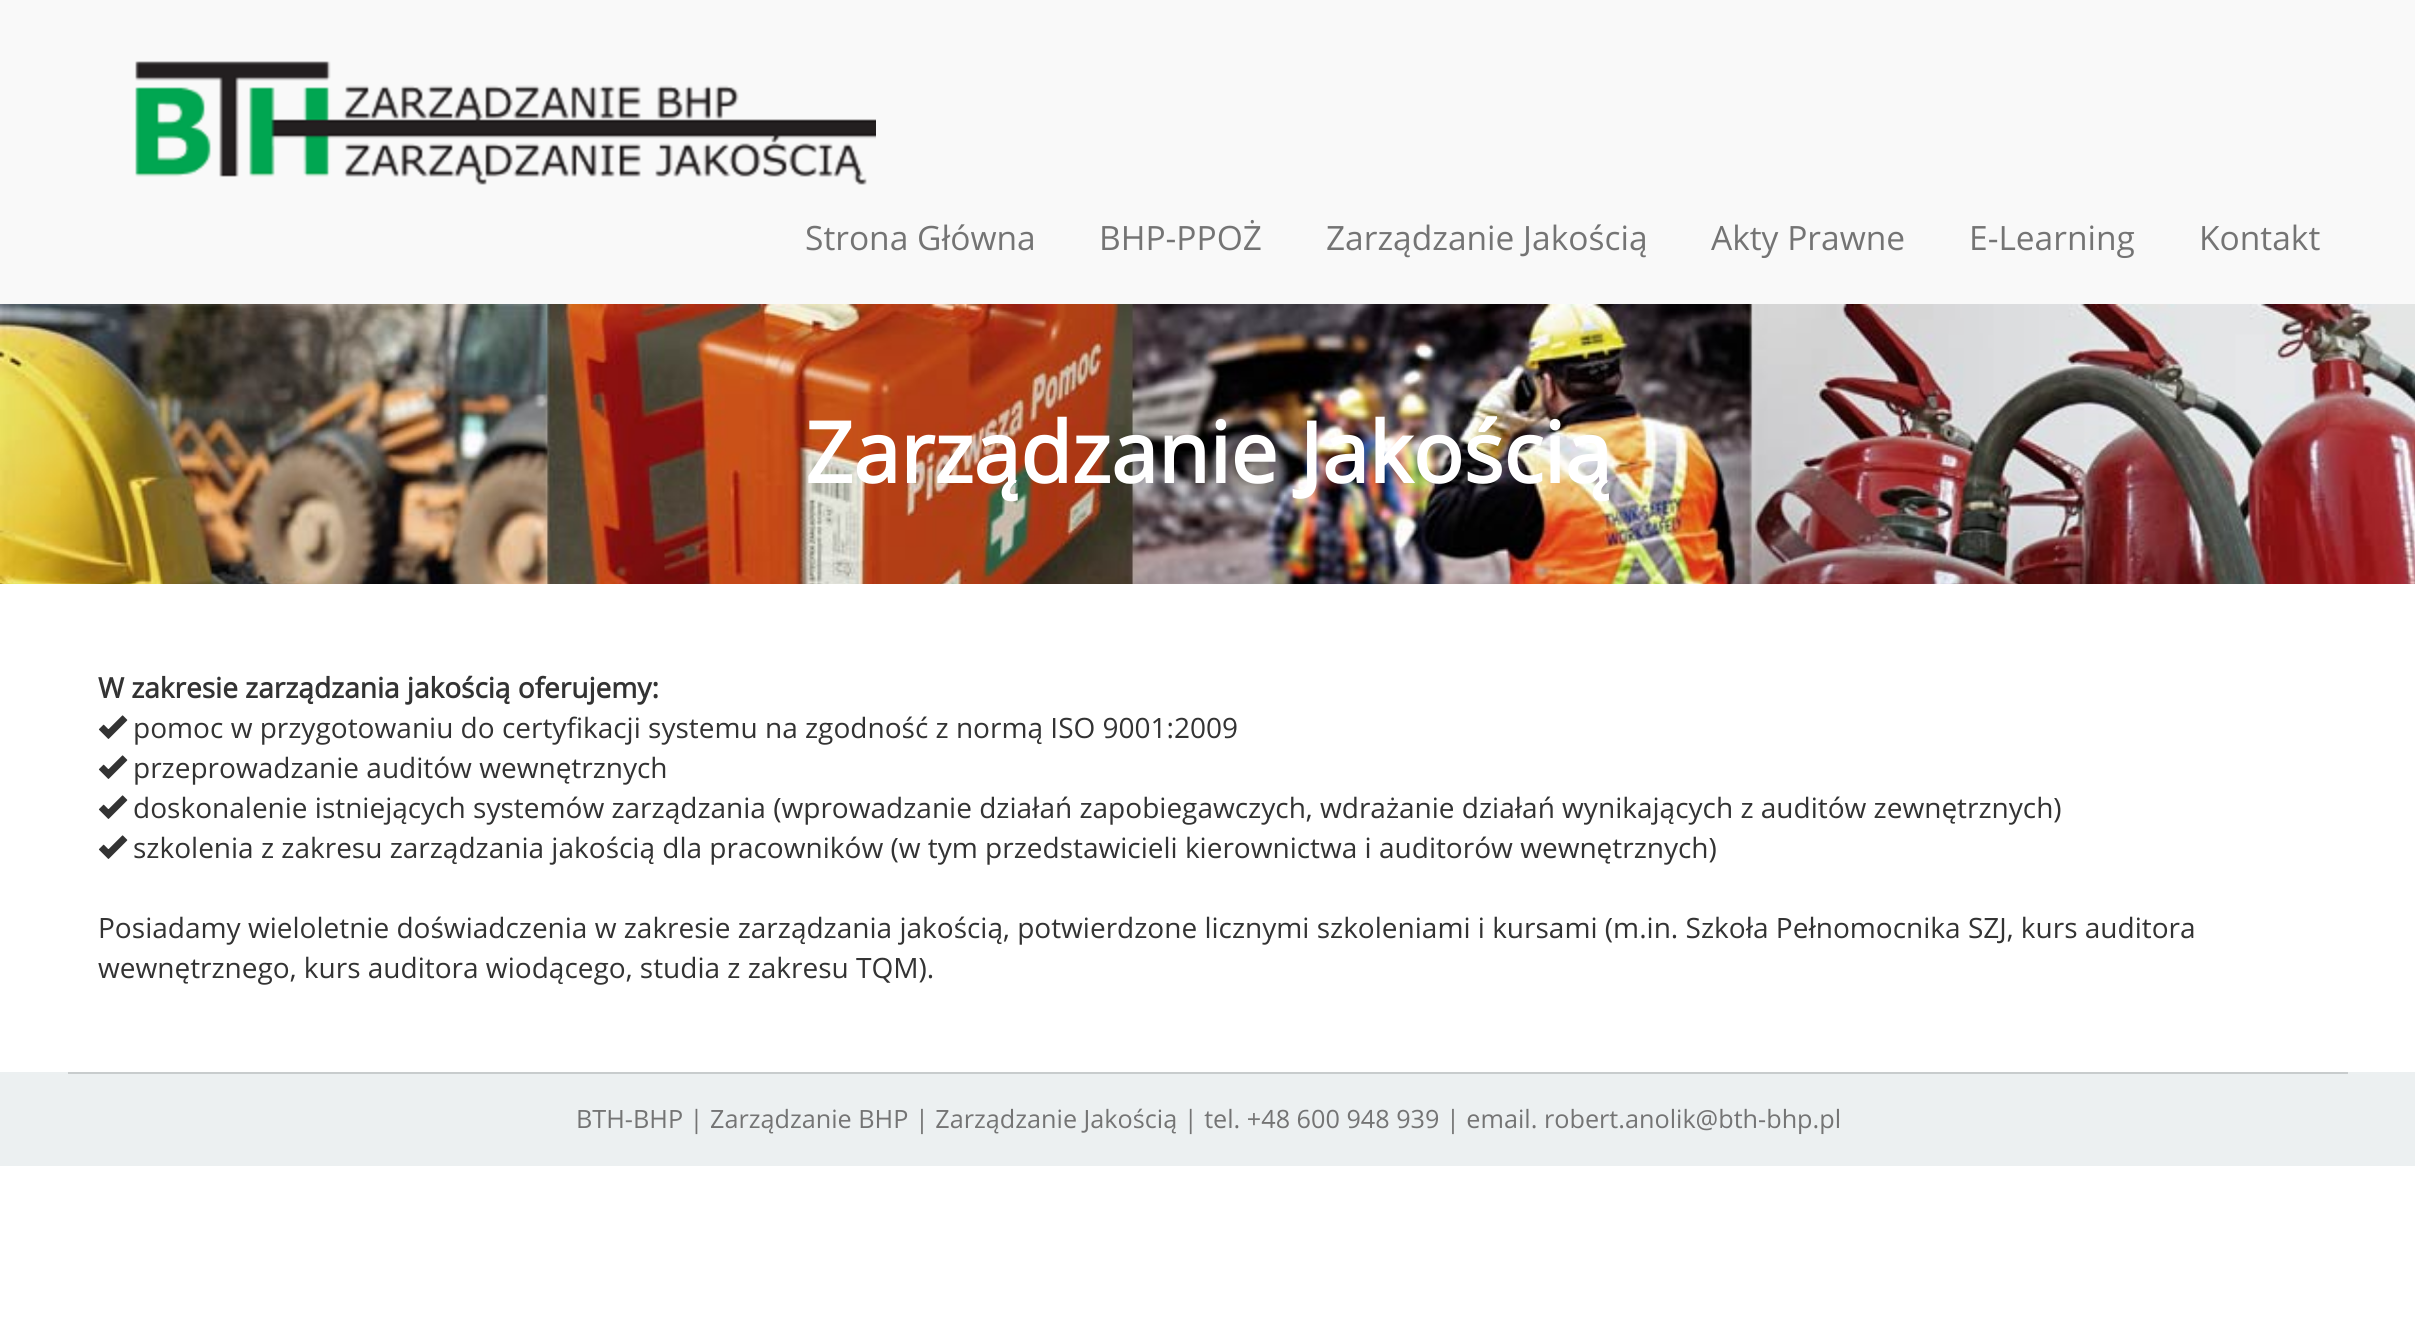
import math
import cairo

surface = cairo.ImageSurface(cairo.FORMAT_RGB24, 2415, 1328)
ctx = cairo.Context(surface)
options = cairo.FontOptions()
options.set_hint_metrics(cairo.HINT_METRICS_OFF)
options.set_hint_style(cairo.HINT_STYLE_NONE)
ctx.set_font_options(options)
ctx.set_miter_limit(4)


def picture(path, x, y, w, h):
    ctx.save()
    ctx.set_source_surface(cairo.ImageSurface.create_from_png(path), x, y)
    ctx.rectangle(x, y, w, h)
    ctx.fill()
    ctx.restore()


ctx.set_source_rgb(1, 1, 1)
ctx.paint()
ctx.set_source_rgb(0.973, 0.973, 0.973)
ctx.rectangle(0, 0, 2415, 304)
ctx.fill()
picture("img1.png", 135, 61, 741, 124)
ctx.select_font_face("Open Sans")
ctx.set_font_size(33.5)
ctx.set_source_rgb(0.455, 0.455, 0.455)
ctx.move_to(805, 250)
ctx.show_text("Strona Główna")
ctx.move_to(1099, 250)
ctx.show_text("BHP-PPOŻ")
ctx.move_to(1326, 250)
ctx.show_text("Zarządzanie Jakością")
ctx.move_to(1711, 250)
ctx.show_text("Akty Prawne")
ctx.move_to(1969, 250)
ctx.show_text("E-Learning")
ctx.move_to(2199, 250)
ctx.show_text("Kontakt")
picture("img2.png", 0, 304, 2415, 280)
ctx.select_font_face("Open Sans", cairo.FONT_SLANT_NORMAL, cairo.FONT_WEIGHT_BOLD)
ctx.set_font_size(84)
ctx.set_source_rgb(1, 1, 1)
ctx.move_to(805, 483)
ctx.show_text("Zarządzanie Jakością")
ctx.set_font_size(28)
ctx.set_source_rgb(0.2, 0.2, 0.2)
ctx.move_to(98, 698)
ctx.show_text("W zakresie zarządzania jakością oferujemy:")
picture("img3.png", 98, 715, 30, 24)
ctx.select_font_face("Open Sans")
ctx.move_to(133, 738)
ctx.show_text("pomoc w przygotowaniu do certyfikacji systemu na zgodność z normą ISO 9001:2009")
picture("img3.png", 98, 755, 30, 24)
ctx.move_to(133, 778)
ctx.show_text("przeprowadzanie auditów wewnętrznych")
picture("img3.png", 98, 795, 30, 24)
ctx.move_to(133, 818)
ctx.show_text("doskonalenie istniejących systemów zarządzania (wprowadzanie działań zapobiegawczych, wdrażanie działań wynikających z auditów zewnętrznych)")
picture("img3.png", 98, 835, 30, 24)
ctx.move_to(133, 858)
ctx.show_text("szkolenia z zakresu zarządzania jakością dla pracowników (w tym przedstawicieli kierownictwa i auditorów wewnętrznych)")
ctx.move_to(98, 938)
ctx.show_text("Posiadamy wieloletnie doświadczenia w zakresie zarządzania jakością, potwierdzone licznymi szkoleniami i kursami (m.in. Szkoła Pełnomocnika SZJ, kurs auditora")
ctx.move_to(98, 978)
ctx.show_text("wewnętrznego, kurs auditora wiodącego, studia z zakresu TQM).")
ctx.set_source_rgb(0.925, 0.941, 0.945)
ctx.rectangle(0, 1072, 2415, 94)
ctx.fill()
ctx.set_source_rgb(0.784, 0.8, 0.804)
ctx.rectangle(68, 1072, 2280, 2)
ctx.fill()
ctx.set_font_size(25.2)
ctx.set_source_rgb(0.455, 0.455, 0.455)
ctx.move_to(576, 1128)
ctx.show_text("BTH-BHP | Zarządzanie BHP | Zarządzanie Jakością | tel. +48 600 948 939 | email. robert.anolik@bth-bhp.pl")
surface.write_to_png("page.png")
